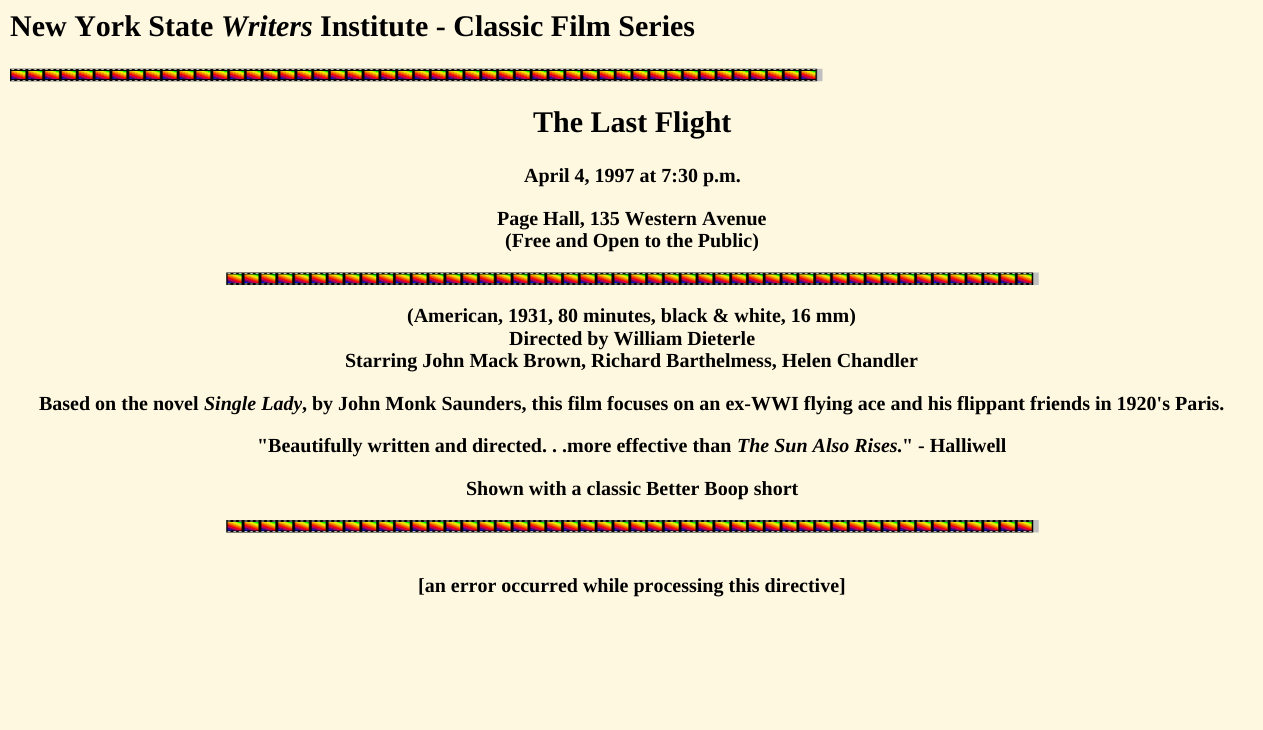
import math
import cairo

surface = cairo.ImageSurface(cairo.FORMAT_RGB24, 1263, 730)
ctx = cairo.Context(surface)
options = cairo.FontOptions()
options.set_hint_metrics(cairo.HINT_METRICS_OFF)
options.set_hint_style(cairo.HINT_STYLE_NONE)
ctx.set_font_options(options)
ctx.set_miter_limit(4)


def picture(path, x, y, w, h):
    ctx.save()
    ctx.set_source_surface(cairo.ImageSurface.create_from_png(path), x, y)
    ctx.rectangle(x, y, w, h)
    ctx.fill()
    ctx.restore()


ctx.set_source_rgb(1, 0.969, 0.878)
ctx.paint()
ctx.select_font_face("Liberation Serif", cairo.FONT_SLANT_NORMAL, cairo.FONT_WEIGHT_BOLD)
ctx.set_font_size(30)
ctx.set_source_rgb(0, 0, 0)
ctx.move_to(10, 36)
ctx.show_text("New York State")
ctx.select_font_face("Liberation Serif", cairo.FONT_SLANT_ITALIC, cairo.FONT_WEIGHT_BOLD)
ctx.move_to(221, 36)
ctx.show_text("Writers")
ctx.select_font_face("Liberation Serif", cairo.FONT_SLANT_NORMAL, cairo.FONT_WEIGHT_BOLD)
ctx.move_to(320, 36)
ctx.show_text("Institute - Classic Film Series")
picture("img1.png", 10, 68, 813, 14)
ctx.move_to(533, 132)
ctx.show_text("The Last Flight")
ctx.set_font_size(20)
ctx.move_to(524, 182)
ctx.show_text("April 4, 1997 at 7:30 p.m.")
ctx.move_to(497, 225)
ctx.show_text("Page Hall, 135 Western Avenue")
ctx.move_to(505, 247)
ctx.show_text("(Free and Open to the Public)")
picture("img2.png", 226, 272, 813, 13)
ctx.move_to(407, 322)
ctx.show_text("(American, 1931, 80 minutes, black & white, 16 mm)")
ctx.move_to(509, 345)
ctx.show_text("Directed by William Dieterle")
ctx.move_to(345, 367)
ctx.show_text("Starring John Mack Brown, Richard Barthelmess, Helen Chandler")
ctx.move_to(39, 410)
ctx.show_text("Based on the novel")
ctx.select_font_face("Liberation Serif", cairo.FONT_SLANT_ITALIC, cairo.FONT_WEIGHT_BOLD)
ctx.move_to(204, 410)
ctx.show_text("Single Lady")
ctx.select_font_face("Liberation Serif", cairo.FONT_SLANT_NORMAL, cairo.FONT_WEIGHT_BOLD)
ctx.move_to(302, 410)
ctx.show_text(", by John Monk Saunders, this film focuses on an ex-WWI flying ace and his flippant friends in 1920's Paris.")
ctx.move_to(257, 452)
ctx.show_text("\"Beautifully written and directed. . .more effective than")
ctx.select_font_face("Liberation Serif", cairo.FONT_SLANT_ITALIC, cairo.FONT_WEIGHT_BOLD)
ctx.move_to(737, 452)
ctx.show_text("The Sun Also Rises")
ctx.select_font_face("Liberation Serif", cairo.FONT_SLANT_NORMAL, cairo.FONT_WEIGHT_BOLD)
ctx.move_to(897, 452)
ctx.show_text(".\" - Halliwell")
ctx.move_to(466, 495)
ctx.show_text("Shown with a classic Better Boop short")
picture("img3.png", 226, 520, 813, 13)
ctx.move_to(418, 592)
ctx.show_text("[an error occurred while processing this directive]")
surface.write_to_png("page.png")
